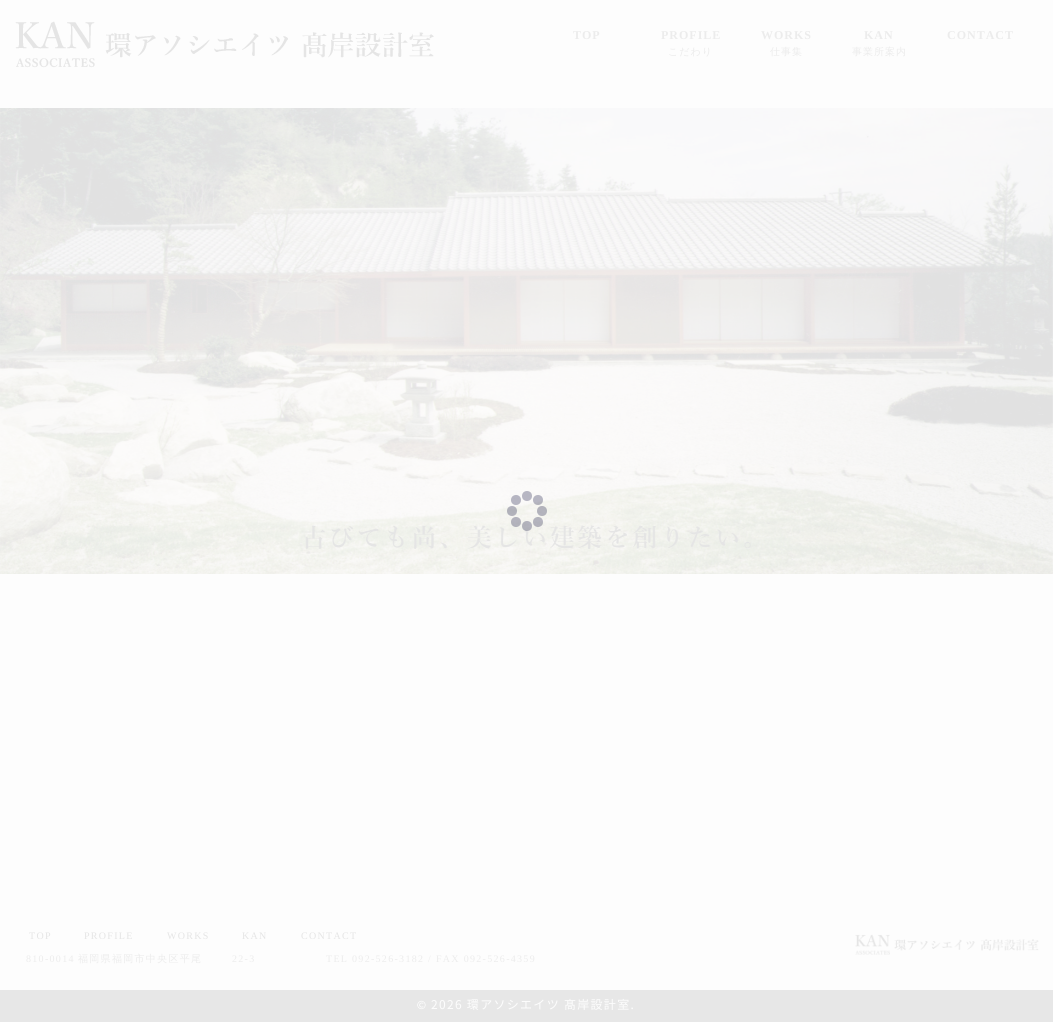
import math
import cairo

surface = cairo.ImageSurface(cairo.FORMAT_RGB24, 1053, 1022)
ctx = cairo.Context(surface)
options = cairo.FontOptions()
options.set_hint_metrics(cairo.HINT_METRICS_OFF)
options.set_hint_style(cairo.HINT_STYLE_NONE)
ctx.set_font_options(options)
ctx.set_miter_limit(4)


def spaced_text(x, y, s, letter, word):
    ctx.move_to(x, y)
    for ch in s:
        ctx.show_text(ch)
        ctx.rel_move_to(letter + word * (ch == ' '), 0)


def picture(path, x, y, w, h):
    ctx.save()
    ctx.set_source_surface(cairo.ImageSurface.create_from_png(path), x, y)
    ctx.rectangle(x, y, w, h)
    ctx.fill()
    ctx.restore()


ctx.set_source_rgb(0.992, 0.992, 0.992)
ctx.paint()
picture("img1.png", 15, 21, 419, 47)
ctx.select_font_face("Liberation Serif", cairo.FONT_SLANT_NORMAL, cairo.FONT_WEIGHT_BOLD)
ctx.set_font_size(12)
ctx.set_source_rgb(0.922, 0.922, 0.922)
spaced_text(573, 39, "TOP", 1, 0)
spaced_text(661, 39, "PROFILE", 1, 0)
ctx.select_font_face("WenQuanYi Zen Hei Medium")
ctx.set_font_size(10)
spaced_text(668, 55, "こだわり", 1, 0)
ctx.select_font_face("Liberation Serif", cairo.FONT_SLANT_NORMAL, cairo.FONT_WEIGHT_BOLD)
ctx.set_font_size(12)
spaced_text(761, 39, "WORKS", 1, 0)
ctx.select_font_face("WenQuanYi Zen Hei Medium")
ctx.set_font_size(10)
spaced_text(770, 55, "仕事集", 1, 0)
ctx.select_font_face("Liberation Serif", cairo.FONT_SLANT_NORMAL, cairo.FONT_WEIGHT_BOLD)
ctx.set_font_size(12)
spaced_text(864, 39, "KAN", 1, 0)
ctx.select_font_face("WenQuanYi Zen Hei Medium")
ctx.set_font_size(10)
spaced_text(852, 55, "事業所案内", 1, 0)
ctx.select_font_face("Liberation Serif", cairo.FONT_SLANT_NORMAL, cairo.FONT_WEIGHT_BOLD)
ctx.set_font_size(12)
spaced_text(947, 39, "CONTACT", 1, 0)
picture("img2.png", 0, 108, 1053, 466)
ctx.select_font_face("Liberation Serif")
ctx.set_font_size(10)
ctx.set_source_rgb(0.898, 0.898, 0.898)
spaced_text(29, 939, "TOP", 1.3, 0)
spaced_text(84, 939, "PROFILE", 1.3, 0)
spaced_text(167, 939, "WORKS", 1.3, 0)
spaced_text(242, 939, "KAN", 1.3, 0)
spaced_text(301, 939, "CONTACT", 1.3, 0)
ctx.set_source_rgb(0.922, 0.922, 0.922)
spaced_text(26, 962, "810-0014", 1.3, 0)
ctx.select_font_face("WenQuanYi Zen Hei Medium")
spaced_text(78, 962, "福岡県福岡市中央区平尾", 1.3, 0)
ctx.select_font_face("Liberation Serif")
spaced_text(232, 962, "22-3", 1.3, 0)
spaced_text(326, 962, "TEL 092-526-3182 / FAX 092-526-4359", 1.3, 0)
picture("img3.png", 855, 934, 184, 21)
ctx.set_source_rgb(0.906, 0.906, 0.906)
ctx.rectangle(0, 990, 1053, 32)
ctx.fill()
ctx.select_font_face("Futura PT")
ctx.set_font_size(12)
ctx.set_source_rgb(0.992, 0.992, 0.992)
spaced_text(417, 1009, "©", 1.3, 0)
ctx.select_font_face("Noto Sans JP")
spaced_text(431, 1009, "2026 環アソシエイツ 髙岸設計室.", 1.3, 0)
ctx.set_source_rgba(0, 0, 0.2, 0.27)
ctx.new_path()
ctx.arc(538, 500, 5, 0, 2 * math.pi)
ctx.fill()
ctx.arc(527, 496, 5, 0, 2 * math.pi)
ctx.fill()
ctx.arc(516, 500, 5, 0, 2 * math.pi)
ctx.fill()
ctx.arc(512, 511, 5, 0, 2 * math.pi)
ctx.fill()
ctx.arc(516, 522, 5, 0, 2 * math.pi)
ctx.fill()
ctx.arc(527, 526, 5, 0, 2 * math.pi)
ctx.fill()
ctx.arc(538, 522, 5, 0, 2 * math.pi)
ctx.fill()
ctx.arc(542, 511, 5, 0, 2 * math.pi)
ctx.fill()
surface.write_to_png("page.png")
